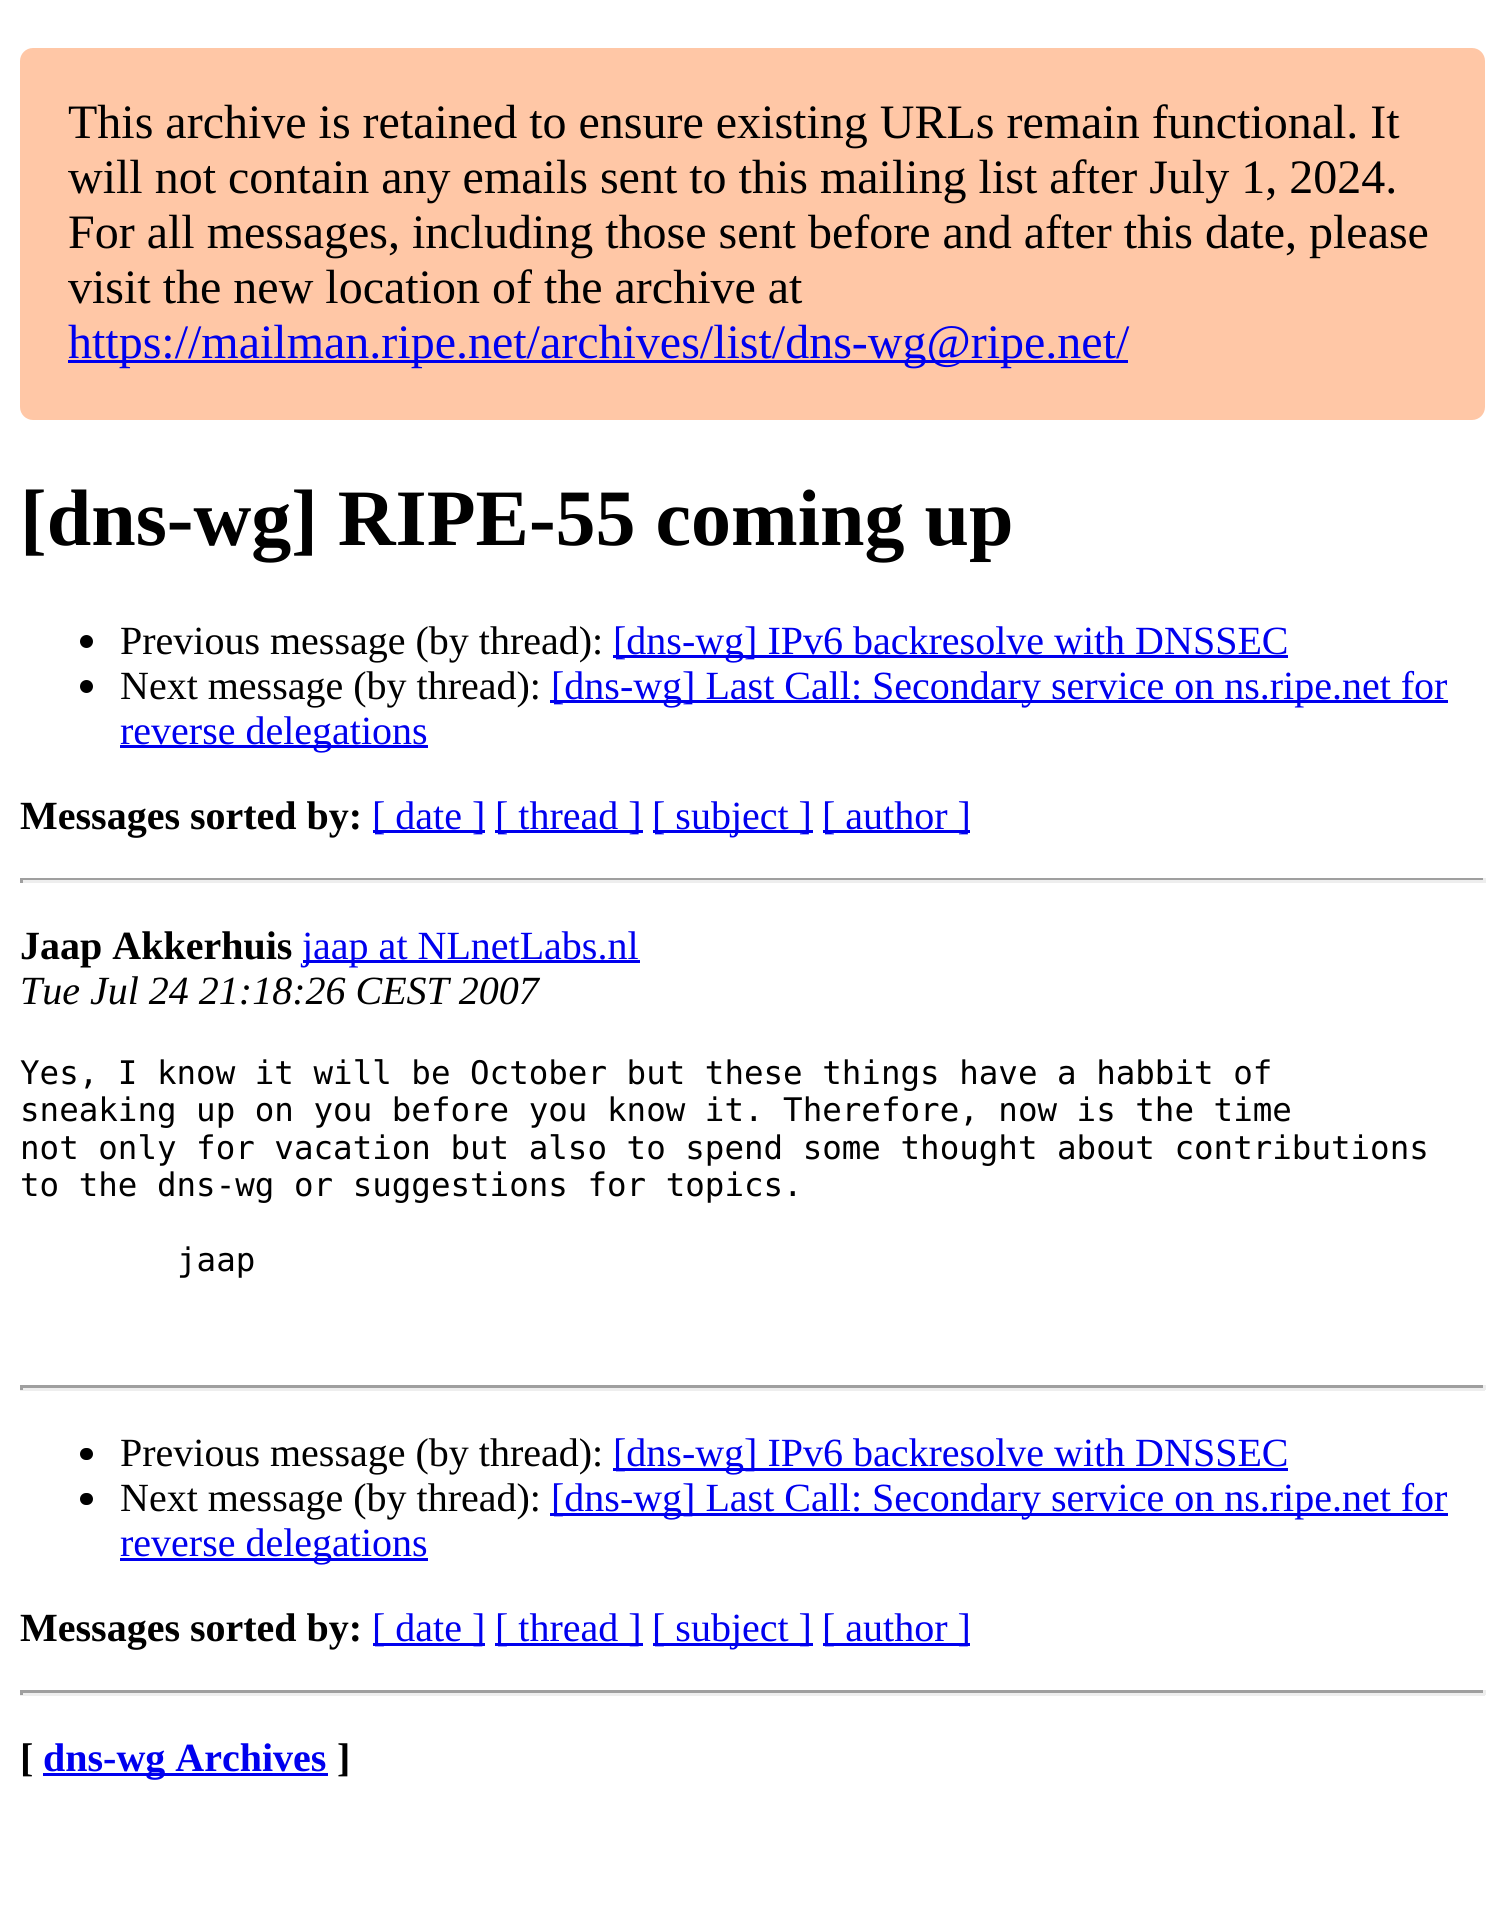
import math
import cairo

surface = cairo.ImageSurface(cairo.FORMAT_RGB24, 1505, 1925)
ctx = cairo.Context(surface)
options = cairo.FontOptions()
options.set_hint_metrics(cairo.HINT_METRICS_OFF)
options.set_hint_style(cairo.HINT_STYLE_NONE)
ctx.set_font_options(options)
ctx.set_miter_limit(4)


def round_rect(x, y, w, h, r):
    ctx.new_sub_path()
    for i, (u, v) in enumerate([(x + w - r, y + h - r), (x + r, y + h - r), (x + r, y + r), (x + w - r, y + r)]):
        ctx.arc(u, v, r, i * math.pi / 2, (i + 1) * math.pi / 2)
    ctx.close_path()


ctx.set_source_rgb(1, 1, 1)
ctx.paint()
ctx.set_source_rgb(1, 0.78, 0.651)
round_rect(20, 48, 1465, 372, 13)
ctx.fill()
ctx.select_font_face("Liberation Serif")
ctx.set_font_size(48)
ctx.set_source_rgb(0, 0, 0)
ctx.move_to(68, 138)
ctx.show_text("This archive is retained to ensure existing URLs remain functional. It")
ctx.move_to(68, 193)
ctx.show_text("will not contain any emails sent to this mailing list after July 1, 2024.")
ctx.move_to(68, 248)
ctx.show_text("For all messages, including those sent before and after this date, please")
ctx.move_to(68, 303)
ctx.show_text("visit the new location of the archive at")
ctx.set_source_rgb(0, 0, 0.933)
ctx.rectangle(68, 360, 1060, 3)
ctx.fill()
ctx.move_to(68, 358)
ctx.show_text("https://mailman.ripe.net/archives/list/dns-wg@ripe.net/")
ctx.select_font_face("Liberation Serif", cairo.FONT_SLANT_NORMAL, cairo.FONT_WEIGHT_BOLD)
ctx.set_font_size(80)
ctx.set_source_rgb(0, 0, 0)
ctx.move_to(20, 545)
ctx.show_text("[dns-wg] RIPE-55 coming up")
ctx.new_path()
ctx.arc(86.5, 641.5, 6.5, 0, 2 * math.pi)
ctx.fill()
ctx.select_font_face("Liberation Serif")
ctx.set_font_size(40)
ctx.move_to(120, 654)
ctx.show_text("Previous message (by thread):")
ctx.set_source_rgb(0, 0, 0.933)
ctx.rectangle(613, 655, 675, 3)
ctx.fill()
ctx.move_to(613, 654)
ctx.show_text("[dns-wg] IPv6 backresolve with DNSSEC")
ctx.set_source_rgb(0, 0, 0)
ctx.new_path()
ctx.arc(86.5, 686.5, 6.5, 0, 2 * math.pi)
ctx.fill()
ctx.move_to(120, 699)
ctx.show_text("Next message (by thread):")
ctx.set_source_rgb(0, 0, 0.933)
ctx.rectangle(550, 700, 898, 3)
ctx.fill()
ctx.move_to(551, 699)
ctx.show_text("[dns-wg] Last Call: Secondary service on ns.ripe.net for")
ctx.rectangle(120, 745, 308, 3)
ctx.fill()
ctx.move_to(120, 744)
ctx.show_text("reverse delegations")
ctx.select_font_face("Liberation Serif", cairo.FONT_SLANT_NORMAL, cairo.FONT_WEIGHT_BOLD)
ctx.set_source_rgb(0, 0, 0)
ctx.move_to(20, 829)
ctx.show_text("Messages sorted by:")
ctx.set_source_rgb(0, 0, 0.933)
ctx.rectangle(373, 830, 112, 3)
ctx.fill()
ctx.select_font_face("Liberation Serif")
ctx.move_to(372, 829)
ctx.show_text("[ date ]")
ctx.rectangle(495, 830, 148, 3)
ctx.fill()
ctx.move_to(495, 829)
ctx.show_text("[ thread ]")
ctx.rectangle(653, 830, 160, 3)
ctx.fill()
ctx.move_to(652, 829)
ctx.show_text("[ subject ]")
ctx.rectangle(823, 830, 147, 3)
ctx.fill()
ctx.move_to(822, 829)
ctx.show_text("[ author ]")
ctx.set_source_rgb(0.624, 0.624, 0.624)
ctx.rectangle(20, 878, 1465, 2)
ctx.fill()
ctx.set_source_rgb(0.933, 0.933, 0.933)
ctx.rectangle(1483, 878, 3, 5)
ctx.fill()
ctx.rectangle(20, 880, 1465, 3)
ctx.fill()
ctx.set_source_rgb(0.624, 0.624, 0.624)
ctx.rectangle(20, 878, 3, 5)
ctx.fill()
ctx.select_font_face("Liberation Serif", cairo.FONT_SLANT_NORMAL, cairo.FONT_WEIGHT_BOLD)
ctx.set_source_rgb(0, 0, 0)
ctx.move_to(20, 959)
ctx.show_text("Jaap Akkerhuis")
ctx.set_source_rgb(0, 0, 0.933)
ctx.rectangle(303, 960, 337, 3)
ctx.fill()
ctx.select_font_face("Liberation Serif")
ctx.move_to(302, 959)
ctx.show_text("jaap at NLnetLabs.nl")
ctx.select_font_face("Liberation Serif", cairo.FONT_SLANT_ITALIC)
ctx.set_source_rgb(0, 0, 0)
ctx.move_to(20, 1004)
ctx.show_text("Tue Jul 24 21:18:26 CEST 2007")
ctx.select_font_face("DejaVu Sans Mono")
ctx.set_font_size(32.5)
ctx.move_to(20, 1084)
ctx.show_text("Yes, I know it will be October but these things have a habbit of")
ctx.move_to(20, 1121)
ctx.show_text("sneaking up on you before you know it. Therefore, now is the time")
ctx.move_to(20, 1159)
ctx.show_text("not only for vacation but also to spend some thought about contributions")
ctx.move_to(20, 1196)
ctx.show_text("to the dns-wg or suggestions for topics.")
ctx.move_to(177, 1271)
ctx.show_text("jaap")
ctx.set_source_rgb(0.624, 0.624, 0.624)
ctx.rectangle(20, 1385, 1465, 3)
ctx.fill()
ctx.set_source_rgb(0.933, 0.933, 0.933)
ctx.rectangle(1483, 1385, 3, 5)
ctx.fill()
ctx.rectangle(20, 1388, 1465, 3)
ctx.fill()
ctx.set_source_rgb(0.624, 0.624, 0.624)
ctx.rectangle(20, 1385, 3, 5)
ctx.fill()
ctx.set_source_rgb(0, 0, 0)
round_rect(80, 1448, 13, 12, 6)
ctx.fill()
ctx.select_font_face("Liberation Serif")
ctx.set_font_size(40)
ctx.move_to(120, 1466)
ctx.show_text("Previous message (by thread):")
ctx.set_source_rgb(0, 0, 0.933)
ctx.rectangle(613, 1468, 675, 3)
ctx.fill()
ctx.move_to(613, 1466)
ctx.show_text("[dns-wg] IPv6 backresolve with DNSSEC")
ctx.set_source_rgb(0, 0, 0)
round_rect(80, 1493, 13, 12, 6)
ctx.fill()
ctx.move_to(120, 1511)
ctx.show_text("Next message (by thread):")
ctx.set_source_rgb(0, 0, 0.933)
ctx.rectangle(550, 1513, 898, 3)
ctx.fill()
ctx.move_to(551, 1511)
ctx.show_text("[dns-wg] Last Call: Secondary service on ns.ripe.net for")
ctx.rectangle(120, 1558, 308, 3)
ctx.fill()
ctx.move_to(120, 1556)
ctx.show_text("reverse delegations")
ctx.select_font_face("Liberation Serif", cairo.FONT_SLANT_NORMAL, cairo.FONT_WEIGHT_BOLD)
ctx.set_source_rgb(0, 0, 0)
ctx.move_to(20, 1641)
ctx.show_text("Messages sorted by:")
ctx.set_source_rgb(0, 0, 0.933)
ctx.rectangle(373, 1643, 112, 3)
ctx.fill()
ctx.select_font_face("Liberation Serif")
ctx.move_to(372, 1641)
ctx.show_text("[ date ]")
ctx.rectangle(495, 1643, 148, 3)
ctx.fill()
ctx.move_to(495, 1641)
ctx.show_text("[ thread ]")
ctx.rectangle(653, 1643, 160, 3)
ctx.fill()
ctx.move_to(652, 1641)
ctx.show_text("[ subject ]")
ctx.rectangle(823, 1643, 147, 3)
ctx.fill()
ctx.move_to(822, 1641)
ctx.show_text("[ author ]")
ctx.set_source_rgb(0.624, 0.624, 0.624)
ctx.rectangle(20, 1690, 1465, 3)
ctx.fill()
ctx.set_source_rgb(0.933, 0.933, 0.933)
ctx.rectangle(1483, 1690, 3, 5)
ctx.fill()
ctx.rectangle(20, 1693, 1465, 3)
ctx.fill()
ctx.set_source_rgb(0.624, 0.624, 0.624)
ctx.rectangle(20, 1690, 3, 5)
ctx.fill()
ctx.select_font_face("Liberation Serif", cairo.FONT_SLANT_NORMAL, cairo.FONT_WEIGHT_BOLD)
ctx.set_source_rgb(0, 0, 0)
ctx.move_to(20, 1771)
ctx.show_text("[")
ctx.set_source_rgb(0, 0, 0.933)
ctx.rectangle(43, 1773, 285, 3)
ctx.fill()
ctx.move_to(43, 1771)
ctx.show_text("dns-wg Archives")
ctx.set_source_rgb(0, 0, 0)
ctx.move_to(337, 1771)
ctx.show_text("]")
surface.write_to_png("page.png")
